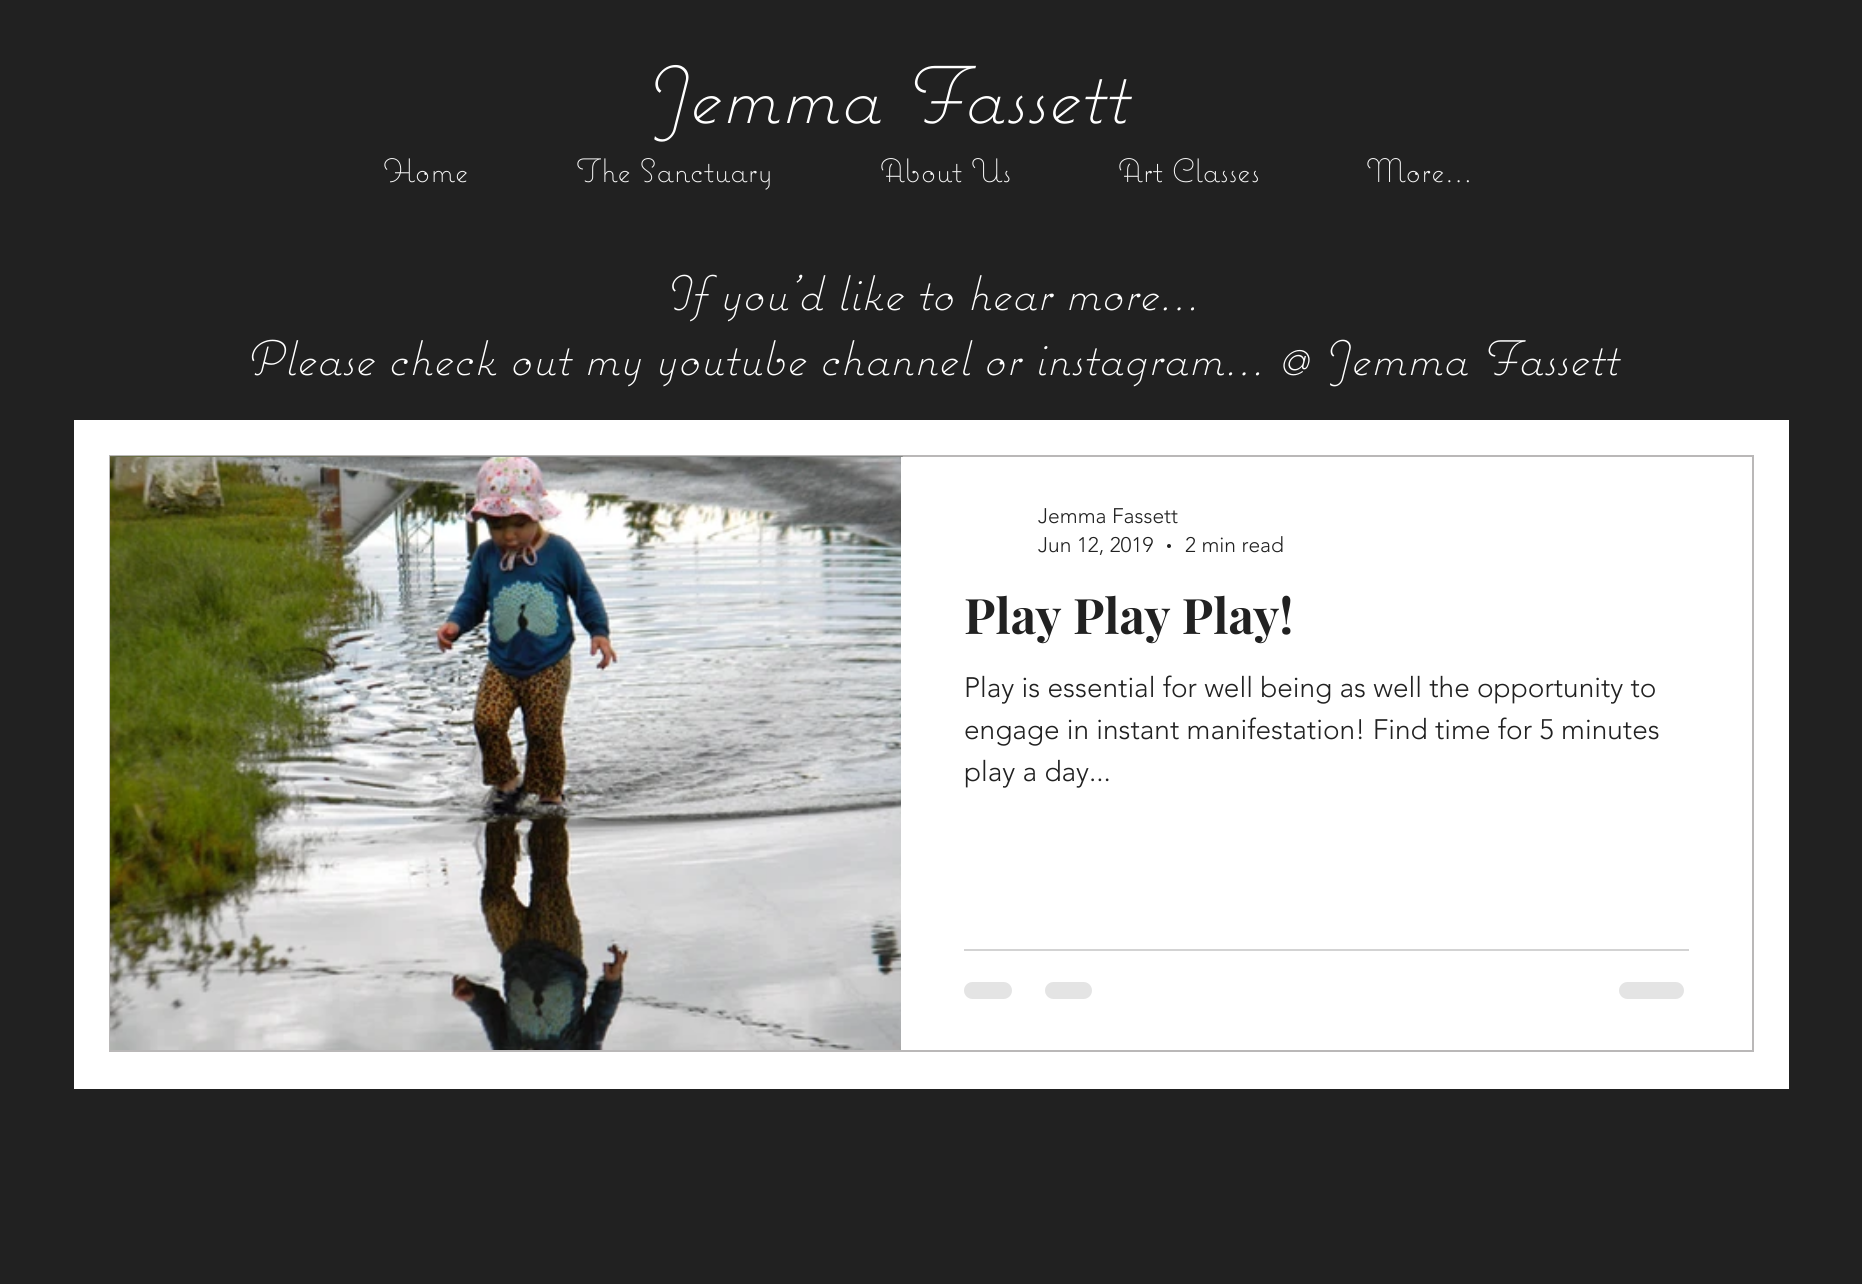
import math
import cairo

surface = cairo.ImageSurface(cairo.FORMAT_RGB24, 1862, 1284)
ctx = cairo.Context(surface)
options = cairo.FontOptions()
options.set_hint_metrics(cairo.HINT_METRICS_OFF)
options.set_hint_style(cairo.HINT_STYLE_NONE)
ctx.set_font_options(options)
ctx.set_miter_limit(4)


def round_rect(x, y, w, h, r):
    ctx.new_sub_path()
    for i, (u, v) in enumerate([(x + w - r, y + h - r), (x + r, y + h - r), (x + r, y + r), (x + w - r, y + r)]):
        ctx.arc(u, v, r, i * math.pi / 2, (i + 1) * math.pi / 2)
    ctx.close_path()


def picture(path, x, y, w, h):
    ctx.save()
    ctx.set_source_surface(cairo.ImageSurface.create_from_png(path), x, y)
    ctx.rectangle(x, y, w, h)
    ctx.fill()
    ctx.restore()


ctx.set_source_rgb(0.129, 0.129, 0.129)
ctx.paint()
ctx.select_font_face("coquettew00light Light", cairo.FONT_SLANT_ITALIC)
ctx.set_font_size(80.5)
ctx.set_source_rgb(1, 1, 1)
ctx.move_to(642, 123)
ctx.show_text("Jemma Fassett")
ctx.select_font_face("coquettew00light Light")
ctx.set_font_size(33.25)
ctx.set_source_rgb(0.961, 0.961, 0.961)
ctx.move_to(383, 182)
ctx.show_text("Home")
ctx.move_to(576, 182)
ctx.show_text("The Sanctuary")
ctx.move_to(880, 182)
ctx.show_text("About Us")
ctx.move_to(1118, 182)
ctx.show_text("Art Classes")
ctx.move_to(1366, 182)
ctx.show_text("More...")
ctx.select_font_face("coquettew00light Light", cairo.FONT_SLANT_ITALIC)
ctx.set_font_size(49)
ctx.set_source_rgb(1, 1, 1)
ctx.move_to(664, 310)
ctx.show_text("If you'd like to hear more...")
ctx.move_to(245, 375)
ctx.show_text("Please check out my youtube channel or instagram... @ Jemma Fassett")
ctx.rectangle(74, 420, 1715, 669)
ctx.fill()
ctx.rectangle(110, 456, 1643, 595)
ctx.set_source_rgb(0.729, 0.722, 0.722)
ctx.stroke()
picture("img1.png", 110, 456, 793, 1)
picture("img2.png", 110, 457, 791, 593)
ctx.select_font_face("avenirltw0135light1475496 Light")
ctx.set_font_size(21)
ctx.set_source_rgb(0.129, 0.129, 0.129)
ctx.move_to(1038, 523)
ctx.show_text("Jemma Fassett")
ctx.move_to(1038, 552)
ctx.show_text("Jun 12, 2019")
ctx.new_path()
ctx.arc(1169, 546, 2, 0, 2 * math.pi)
ctx.fill()
ctx.move_to(1185, 552)
ctx.show_text("2 min read")
ctx.select_font_face("Playfair Display", cairo.FONT_SLANT_NORMAL, cairo.FONT_WEIGHT_BOLD)
ctx.set_font_size(49)
ctx.move_to(964, 634)
ctx.show_text("Play Play Play!")
ctx.select_font_face("avenirltw0135light1475496 Light")
ctx.set_font_size(28)
ctx.move_to(964, 697)
ctx.show_text("Play is essential for well being as well the opportunity to")
ctx.move_to(964, 739)
ctx.show_text("engage in instant manifestation! Find time for 5 minutes")
ctx.move_to(964, 781)
ctx.show_text("play a day...")
ctx.set_source_rgb(0.827, 0.827, 0.827)
ctx.rectangle(964, 949, 725, 2)
ctx.fill()
ctx.set_source_rgb(0.894, 0.894, 0.894)
round_rect(964, 982, 48, 17, 8.5)
ctx.fill()
round_rect(1045, 982, 47, 17, 8.5)
ctx.fill()
round_rect(1619, 982, 65, 17, 8.5)
ctx.fill()
surface.write_to_png("page.png")
